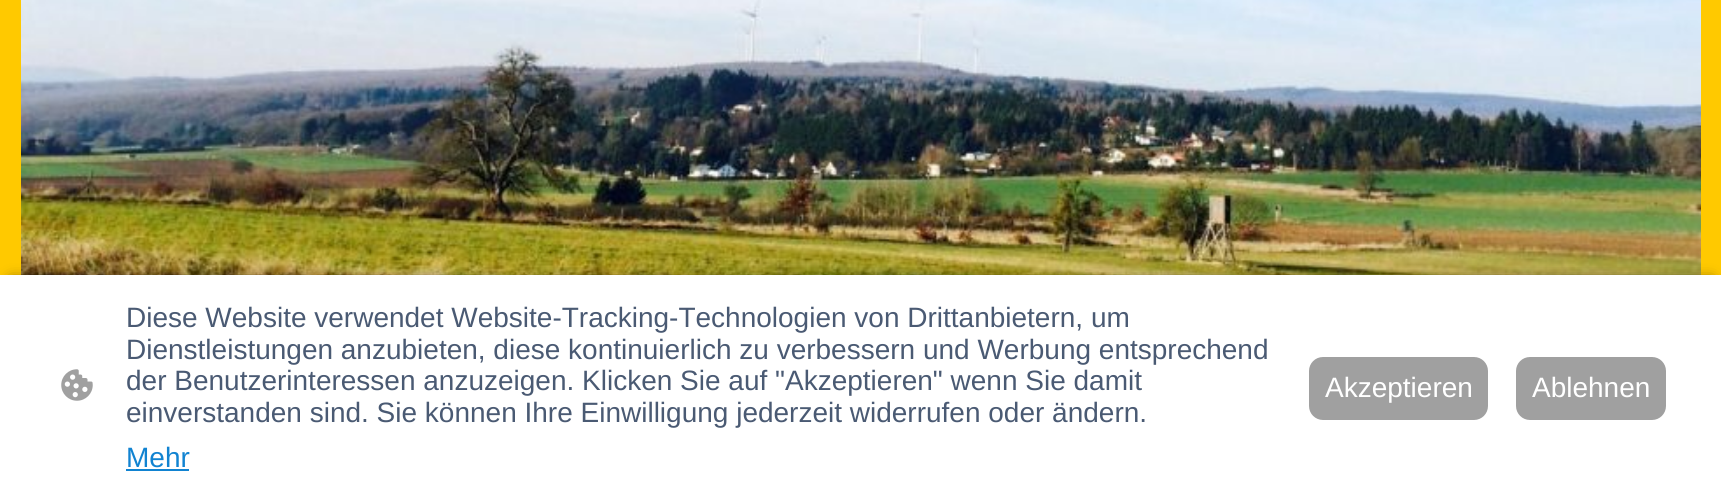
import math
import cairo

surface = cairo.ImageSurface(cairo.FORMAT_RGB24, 1721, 502)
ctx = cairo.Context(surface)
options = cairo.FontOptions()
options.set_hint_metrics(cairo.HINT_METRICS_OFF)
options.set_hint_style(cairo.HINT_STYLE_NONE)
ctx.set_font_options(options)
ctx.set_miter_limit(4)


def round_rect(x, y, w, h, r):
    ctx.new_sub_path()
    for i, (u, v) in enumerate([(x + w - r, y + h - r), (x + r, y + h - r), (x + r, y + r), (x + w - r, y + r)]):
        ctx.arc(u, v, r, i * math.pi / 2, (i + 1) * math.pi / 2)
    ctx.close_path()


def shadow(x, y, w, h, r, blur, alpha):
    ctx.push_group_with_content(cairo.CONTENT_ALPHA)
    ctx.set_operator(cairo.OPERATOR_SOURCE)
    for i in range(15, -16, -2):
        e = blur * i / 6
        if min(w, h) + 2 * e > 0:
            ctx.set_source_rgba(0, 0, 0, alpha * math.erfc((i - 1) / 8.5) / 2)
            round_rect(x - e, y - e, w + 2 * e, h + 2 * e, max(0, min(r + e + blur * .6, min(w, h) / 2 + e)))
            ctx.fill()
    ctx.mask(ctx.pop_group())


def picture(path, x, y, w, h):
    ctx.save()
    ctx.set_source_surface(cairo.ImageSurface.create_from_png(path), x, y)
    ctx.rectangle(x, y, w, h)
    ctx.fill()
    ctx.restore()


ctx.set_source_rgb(1, 0.788, 0)
ctx.paint()
picture("img1.png", 21, 0, 1680, 275)
ctx.set_source_rgb(0, 0, 0)
shadow(11, 280, 1701, 207, 0, 7, 0.63)
ctx.set_source_rgb(1, 1, 1)
ctx.rectangle(0, 275, 1721, 227)
ctx.fill()
picture("img2.png", 61, 369, 32, 32)
ctx.select_font_face("Liberation Sans")
ctx.set_font_size(28)
ctx.set_source_rgb(0.29, 0.353, 0.451)
ctx.move_to(126, 327)
ctx.show_text("Diese Website verwendet Website-Tracking-Technologien von Drittanbietern, um")
ctx.move_to(126, 359)
ctx.show_text("Dienstleistungen anzubieten, diese kontinuierlich zu verbessern und Werbung entsprechend")
ctx.move_to(126, 390)
ctx.show_text("der Benutzerinteressen anzuzeigen. Klicken Sie auf \"Akzeptieren\" wenn Sie damit")
ctx.move_to(126, 422)
ctx.show_text("einverstanden sind. Sie können Ihre Einwilligung jederzeit widerrufen oder ändern.")
ctx.set_source_rgb(0.067, 0.514, 0.82)
ctx.move_to(126, 467)
ctx.show_text("Mehr")
ctx.rectangle(126, 469, 63, 2)
ctx.fill()
ctx.set_source_rgb(0.627, 0.627, 0.627)
round_rect(1310, 358, 177, 61, 13)
ctx.fill_preserve()
ctx.stroke()
ctx.set_source_rgb(1, 1, 1)
ctx.move_to(1325, 397)
ctx.show_text("Akzeptieren")
ctx.set_source_rgb(0.627, 0.627, 0.627)
round_rect(1517, 358, 148, 61, 13)
ctx.fill_preserve()
ctx.stroke()
ctx.set_source_rgb(1, 1, 1)
ctx.move_to(1532, 397)
ctx.show_text("Ablehnen")
surface.write_to_png("page.png")
